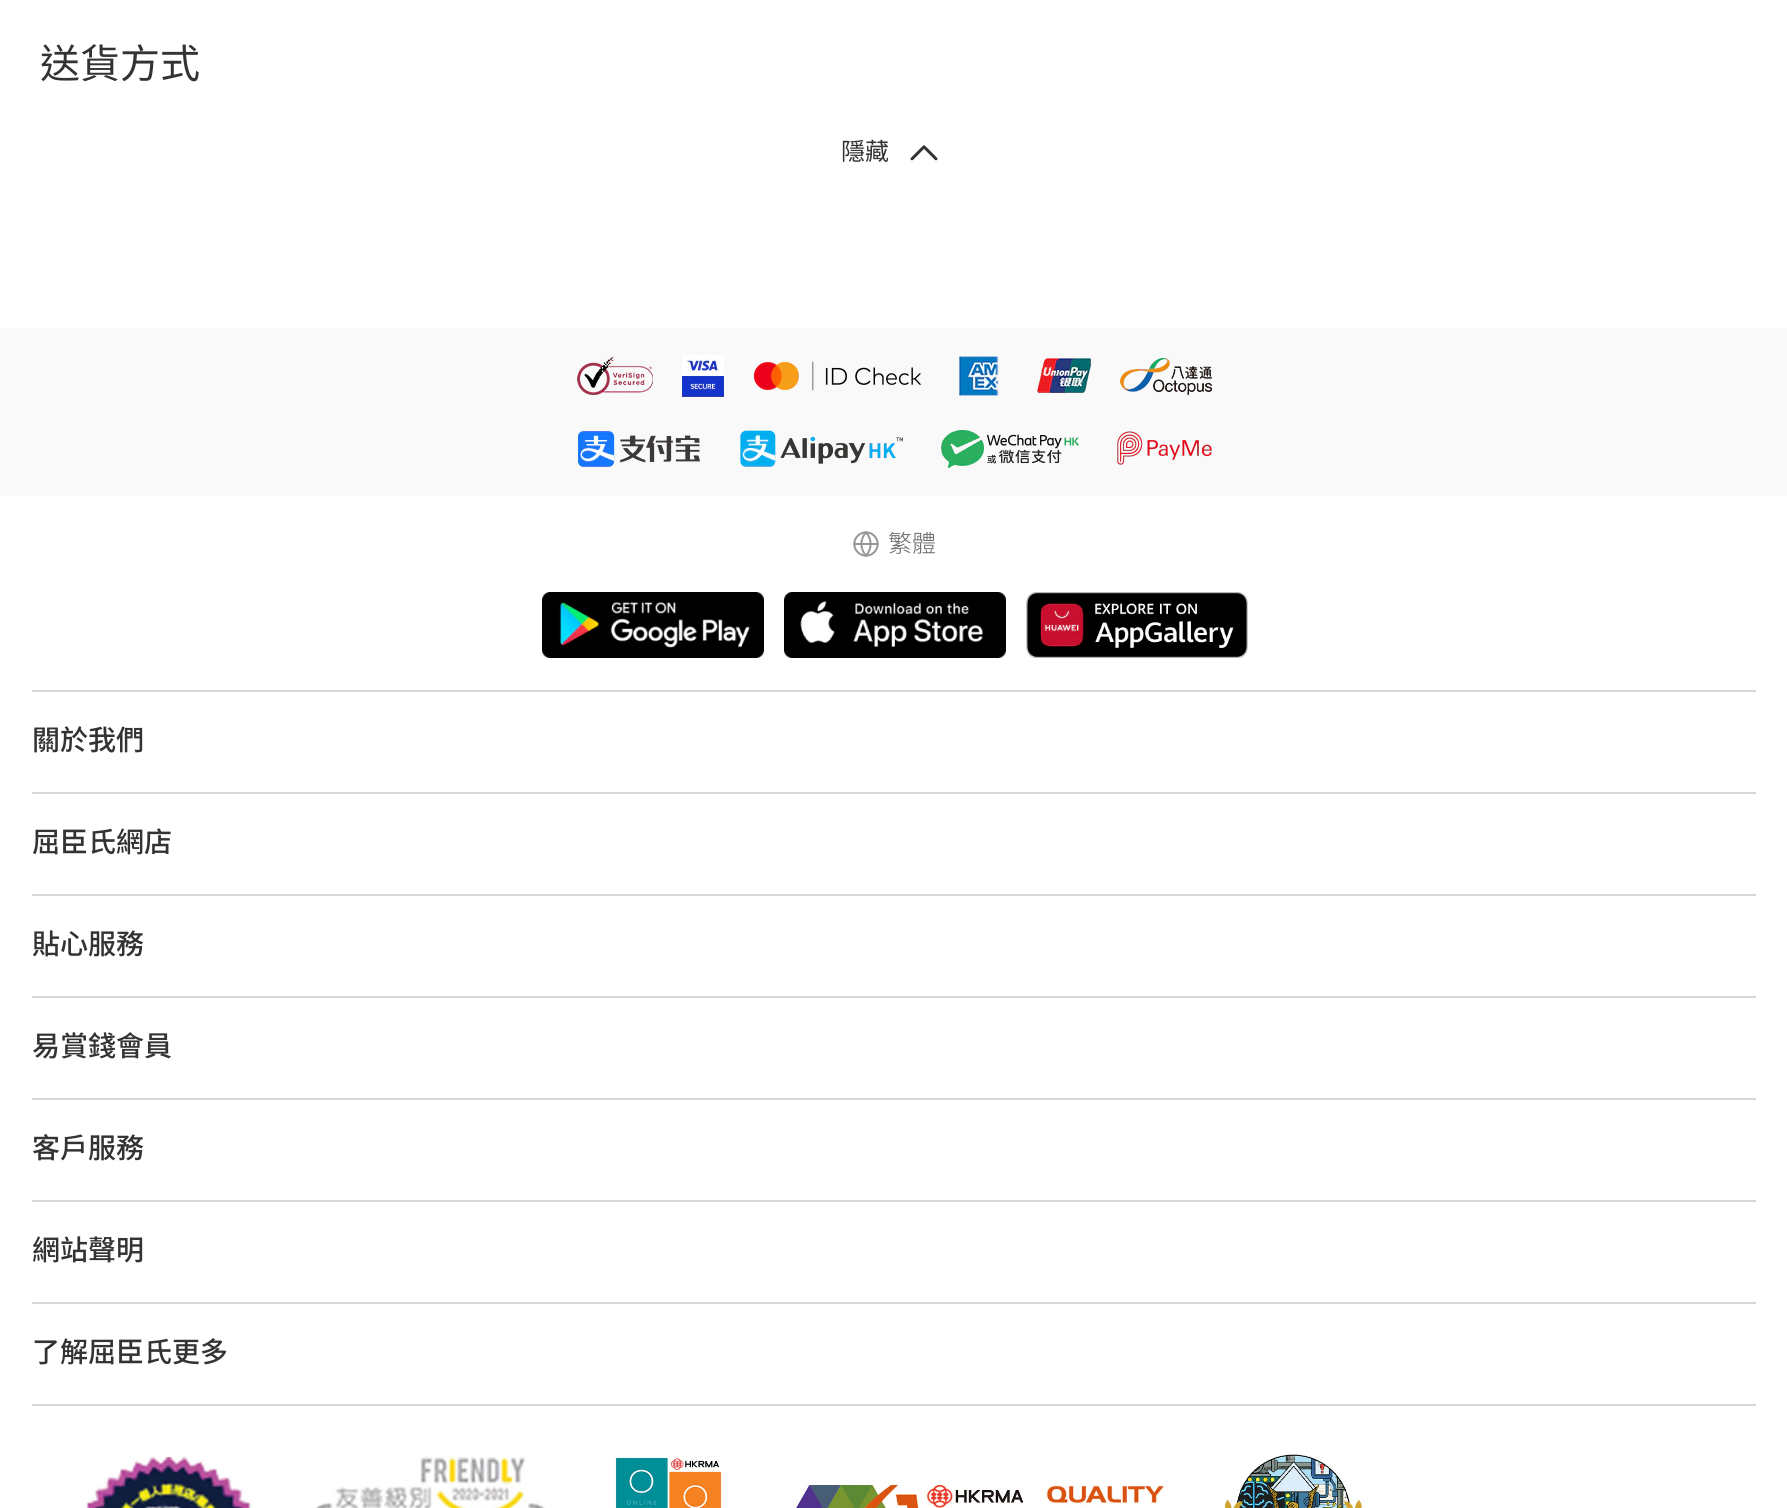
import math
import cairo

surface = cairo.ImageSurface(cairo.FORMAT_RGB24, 1787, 1508)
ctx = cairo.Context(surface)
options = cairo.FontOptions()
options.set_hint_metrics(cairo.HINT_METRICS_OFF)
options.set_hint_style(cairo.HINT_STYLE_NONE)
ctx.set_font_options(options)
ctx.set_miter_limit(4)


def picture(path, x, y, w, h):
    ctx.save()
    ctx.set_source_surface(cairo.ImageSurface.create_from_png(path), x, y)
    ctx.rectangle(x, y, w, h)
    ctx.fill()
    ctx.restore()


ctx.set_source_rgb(1, 1, 1)
ctx.paint()
ctx.select_font_face("Noto Sans TC")
ctx.set_font_size(40)
ctx.set_source_rgb(0.2, 0.2, 0.2)
ctx.move_to(40, 78)
ctx.show_text("送貨方式")
ctx.set_font_size(24)
ctx.move_to(841, 160)
ctx.show_text("隱藏")
picture("img1.png", 910, 145, 28, 16)
ctx.set_source_rgb(0.973, 0.973, 0.973)
ctx.rectangle(0, 328, 1787, 168)
ctx.fill()
picture("img2.png", 577, 355, 635, 42)
picture("img3.png", 578, 430, 634, 38)
picture("img4.png", 853, 531, 26, 26)
ctx.select_font_face("Noto Sans TC Light")
ctx.set_source_rgb(0.404, 0.404, 0.404)
ctx.move_to(888, 552)
ctx.show_text("繁體")
picture("img5.png", 542, 592, 222, 66)
picture("img6.png", 784, 592, 222, 66)
picture("img7.png", 1026, 592, 222, 66)
ctx.set_source_rgb(0.847, 0.847, 0.847)
ctx.rectangle(32, 690, 1724, 2)
ctx.fill()
ctx.rectangle(32, 792, 1724, 2)
ctx.fill()
ctx.select_font_face("Noto Sans TC Medium")
ctx.set_font_size(28)
ctx.set_source_rgb(0.2, 0.2, 0.2)
ctx.move_to(32, 750)
ctx.show_text("關於我們")
ctx.set_source_rgb(0.847, 0.847, 0.847)
ctx.rectangle(32, 894, 1724, 2)
ctx.fill()
ctx.set_source_rgb(0.2, 0.2, 0.2)
ctx.move_to(32, 852)
ctx.show_text("屈臣氏網店")
ctx.set_source_rgb(0.847, 0.847, 0.847)
ctx.rectangle(32, 996, 1724, 2)
ctx.fill()
ctx.set_source_rgb(0.2, 0.2, 0.2)
ctx.move_to(32, 954)
ctx.show_text("貼心服務")
ctx.set_source_rgb(0.847, 0.847, 0.847)
ctx.rectangle(32, 1098, 1724, 2)
ctx.fill()
ctx.set_source_rgb(0.2, 0.2, 0.2)
ctx.move_to(32, 1056)
ctx.show_text("易賞錢會員")
ctx.set_source_rgb(0.847, 0.847, 0.847)
ctx.rectangle(32, 1200, 1724, 2)
ctx.fill()
ctx.set_source_rgb(0.2, 0.2, 0.2)
ctx.move_to(32, 1158)
ctx.show_text("客戶服務")
ctx.set_source_rgb(0.847, 0.847, 0.847)
ctx.rectangle(32, 1302, 1724, 2)
ctx.fill()
ctx.set_source_rgb(0.2, 0.2, 0.2)
ctx.move_to(32, 1260)
ctx.show_text("網站聲明")
ctx.set_source_rgb(0.847, 0.847, 0.847)
ctx.rectangle(32, 1404, 1724, 2)
ctx.fill()
ctx.set_source_rgb(0.2, 0.2, 0.2)
ctx.move_to(32, 1362)
ctx.show_text("了解屈臣氏更多")
picture("img8.png", 86, 1454, 1279, 54)
surface.write_to_png("page.png")
